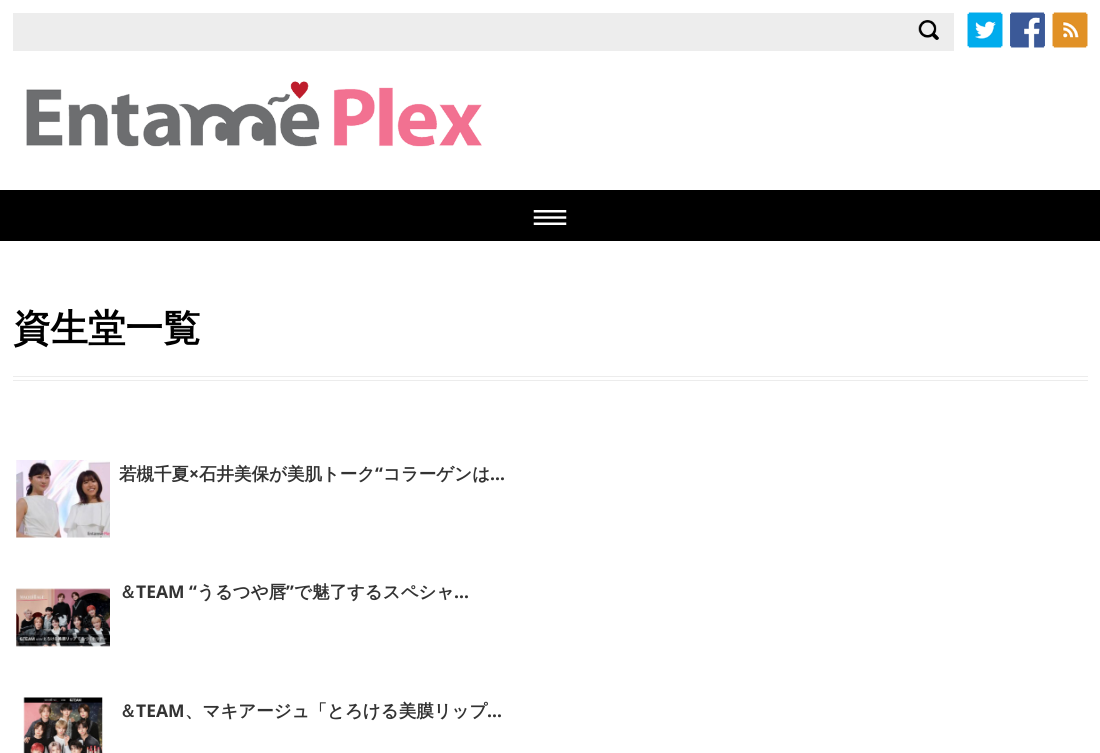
import math
import cairo

surface = cairo.ImageSurface(cairo.FORMAT_RGB24, 1100, 753)
ctx = cairo.Context(surface)
options = cairo.FontOptions()
options.set_hint_metrics(cairo.HINT_METRICS_OFF)
options.set_hint_style(cairo.HINT_STYLE_NONE)
ctx.set_font_options(options)
ctx.set_miter_limit(4)


def picture(path, x, y, w, h):
    ctx.save()
    ctx.set_source_surface(cairo.ImageSurface.create_from_png(path), x, y)
    ctx.rectangle(x, y, w, h)
    ctx.fill()
    ctx.restore()


ctx.set_source_rgb(1, 1, 1)
ctx.paint()
ctx.set_source_rgb(0.929, 0.929, 0.929)
ctx.rectangle(13, 13, 941, 38)
ctx.fill()
picture("img1.png", 918, 20, 21, 20)
picture("img2.png", 967, 12, 36, 36)
picture("img3.png", 1010, 12, 35, 36)
picture("img4.png", 1052, 12, 36, 36)
picture("img5.png", 26, 81, 456, 66)
ctx.set_source_rgb(0, 0, 0)
ctx.rectangle(0, 190, 1100, 51)
ctx.fill()
picture("img6.png", 533, 210, 34, 15)
ctx.set_source_rgb(0.922, 0.922, 0.922)
ctx.rectangle(13, 376, 1075, 1)
ctx.fill()
ctx.rectangle(13, 380, 1075, 1)
ctx.fill()
ctx.select_font_face("WenQuanYi Zen Hei", cairo.FONT_SLANT_NORMAL, cairo.FONT_WEIGHT_BOLD)
ctx.set_font_size(37.5)
ctx.set_source_rgb(0, 0, 0)
ctx.move_to(13, 341)
ctx.show_text("資生堂一覧")
picture("img7.png", 16, 460, 94, 78)
ctx.set_font_size(17.5)
ctx.set_source_rgb(0.2, 0.2, 0.2)
ctx.move_to(119, 480)
ctx.show_text("若槻千夏")
ctx.select_font_face("Open Sans", cairo.FONT_SLANT_NORMAL, cairo.FONT_WEIGHT_BOLD)
ctx.move_to(189, 480)
ctx.show_text("×")
ctx.select_font_face("WenQuanYi Zen Hei", cairo.FONT_SLANT_NORMAL, cairo.FONT_WEIGHT_BOLD)
ctx.move_to(199, 480)
ctx.show_text("石井美保が美肌トーク")
ctx.select_font_face("Open Sans", cairo.FONT_SLANT_NORMAL, cairo.FONT_WEIGHT_BOLD)
ctx.move_to(375, 480)
ctx.show_text("“")
ctx.select_font_face("WenQuanYi Zen Hei", cairo.FONT_SLANT_NORMAL, cairo.FONT_WEIGHT_BOLD)
ctx.move_to(383, 480)
ctx.show_text("コラーゲンは")
ctx.select_font_face("Open Sans", cairo.FONT_SLANT_NORMAL, cairo.FONT_WEIGHT_BOLD)
ctx.move_to(490, 480)
ctx.show_text("…")
picture("img8.png", 16, 588, 94, 59)
ctx.select_font_face("WenQuanYi Zen Hei", cairo.FONT_SLANT_NORMAL, cairo.FONT_WEIGHT_BOLD)
ctx.move_to(119, 598)
ctx.show_text("＆")
ctx.select_font_face("Open Sans", cairo.FONT_SLANT_NORMAL, cairo.FONT_WEIGHT_BOLD)
ctx.move_to(136, 598)
ctx.show_text("TEAM “")
ctx.select_font_face("WenQuanYi Zen Hei", cairo.FONT_SLANT_NORMAL, cairo.FONT_WEIGHT_BOLD)
ctx.move_to(197, 598)
ctx.show_text("うるつや唇")
ctx.select_font_face("Open Sans", cairo.FONT_SLANT_NORMAL, cairo.FONT_WEIGHT_BOLD)
ctx.move_to(286, 598)
ctx.show_text("”")
ctx.select_font_face("WenQuanYi Zen Hei", cairo.FONT_SLANT_NORMAL, cairo.FONT_WEIGHT_BOLD)
ctx.move_to(294, 598)
ctx.show_text("で魅了するスペシャ")
ctx.select_font_face("Open Sans", cairo.FONT_SLANT_NORMAL, cairo.FONT_WEIGHT_BOLD)
ctx.move_to(454, 598)
ctx.show_text("…")
picture("img9.png", 23, 697, 80, 56)
ctx.select_font_face("WenQuanYi Zen Hei", cairo.FONT_SLANT_NORMAL, cairo.FONT_WEIGHT_BOLD)
ctx.move_to(119, 717)
ctx.show_text("＆")
ctx.select_font_face("Open Sans", cairo.FONT_SLANT_NORMAL, cairo.FONT_WEIGHT_BOLD)
ctx.move_to(136, 717)
ctx.show_text("TEAM")
ctx.select_font_face("WenQuanYi Zen Hei", cairo.FONT_SLANT_NORMAL, cairo.FONT_WEIGHT_BOLD)
ctx.move_to(185, 717)
ctx.show_text("、マキアージュ「とろける美膜リップ")
ctx.select_font_face("Open Sans", cairo.FONT_SLANT_NORMAL, cairo.FONT_WEIGHT_BOLD)
ctx.move_to(487, 717)
ctx.show_text("…")
surface.write_to_png("page.png")
